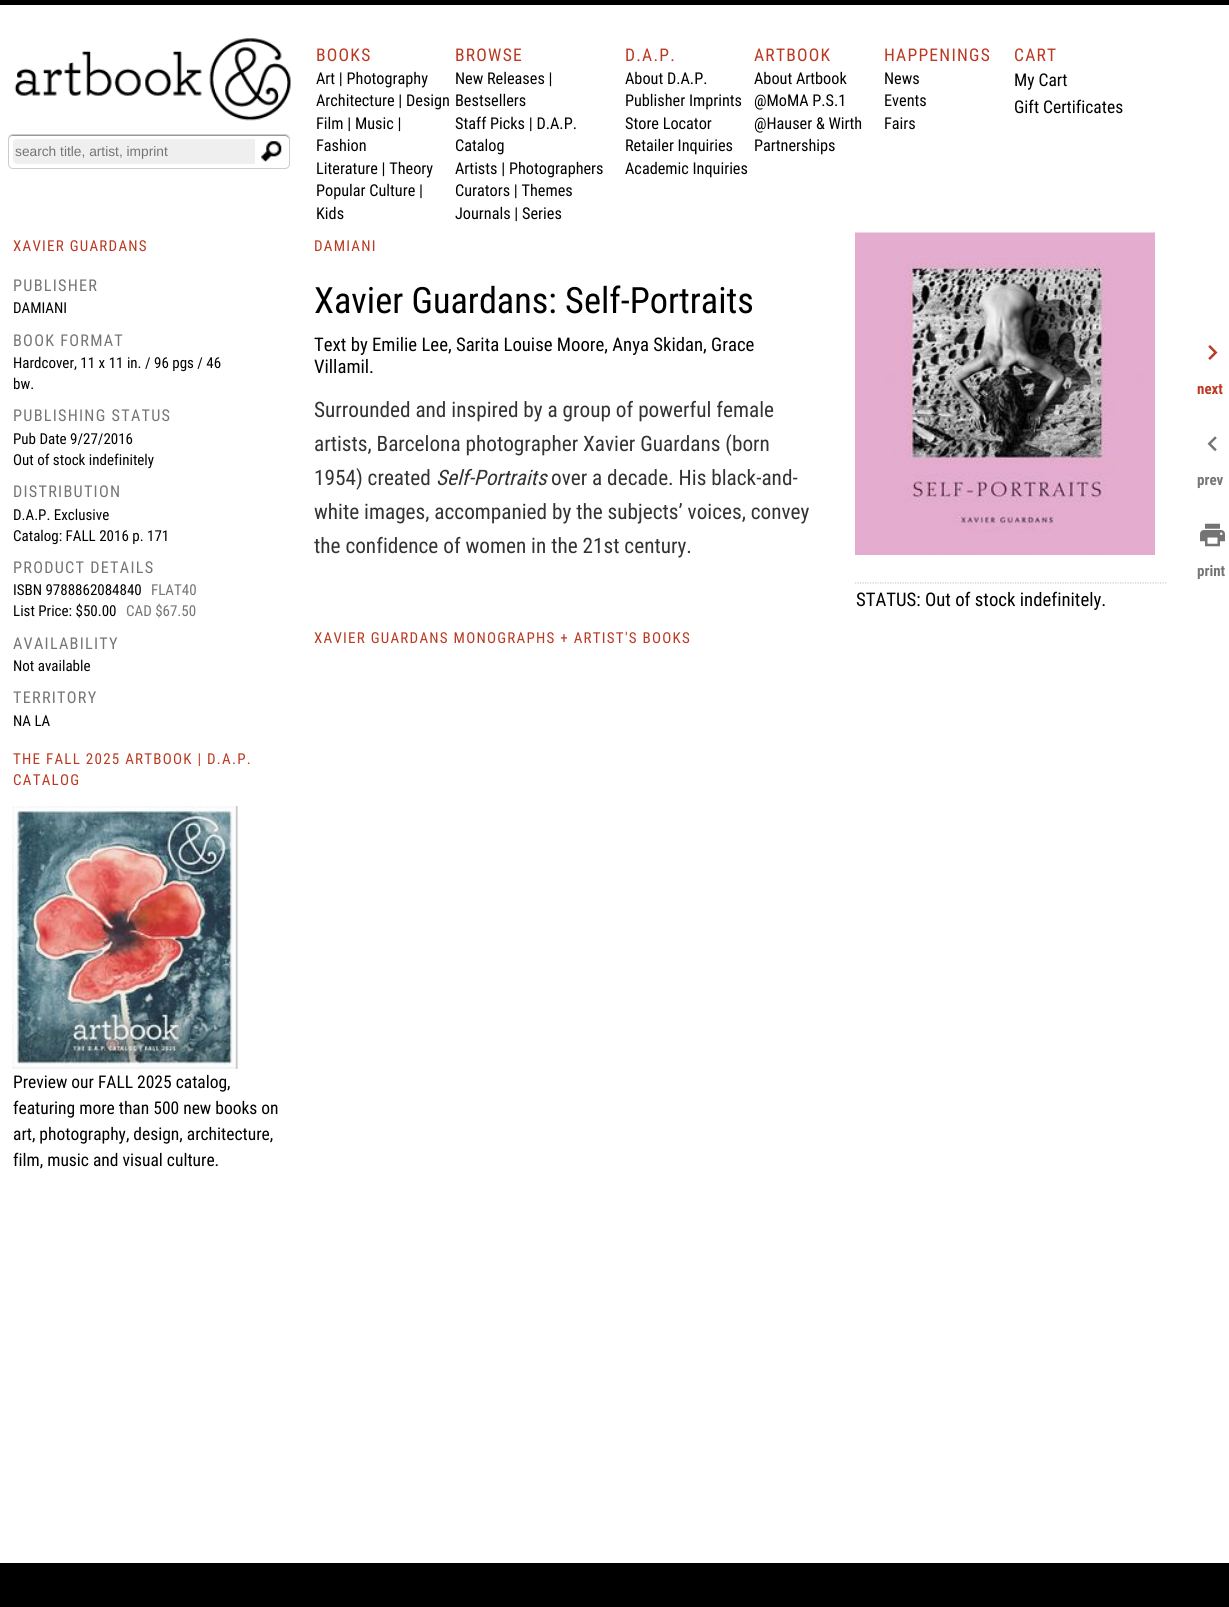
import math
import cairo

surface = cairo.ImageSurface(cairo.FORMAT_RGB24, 1229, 1607)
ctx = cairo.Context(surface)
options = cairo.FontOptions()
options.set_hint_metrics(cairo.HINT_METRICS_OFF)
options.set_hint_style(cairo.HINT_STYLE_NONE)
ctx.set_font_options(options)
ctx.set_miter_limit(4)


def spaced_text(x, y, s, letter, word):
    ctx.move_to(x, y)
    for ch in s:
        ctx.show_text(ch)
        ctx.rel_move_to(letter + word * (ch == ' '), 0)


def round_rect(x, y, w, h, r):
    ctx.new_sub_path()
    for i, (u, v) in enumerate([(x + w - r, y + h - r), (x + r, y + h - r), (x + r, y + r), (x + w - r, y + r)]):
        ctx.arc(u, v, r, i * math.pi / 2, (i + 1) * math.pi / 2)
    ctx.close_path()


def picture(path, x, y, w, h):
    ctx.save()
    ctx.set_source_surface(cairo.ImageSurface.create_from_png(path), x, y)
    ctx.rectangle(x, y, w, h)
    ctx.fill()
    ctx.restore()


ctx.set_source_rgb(1, 1, 1)
ctx.paint()
ctx.set_source_rgb(0, 0, 0)
ctx.rectangle(0, 0, 1229, 5)
ctx.fill()
picture("img1.png", 14, 38, 277, 83)
ctx.set_source_rgb(0.6, 0.6, 0.6)
ctx.new_path()
ctx.move_to(12, 136)
ctx.line_to(285, 136)
ctx.curve_to(287, 136, 289, 138, 289, 140)
ctx.curve_to(289, 137, 288, 135, 285, 135)
ctx.line_to(13, 135)
ctx.curve_to(10, 135, 9, 137, 9, 140)
ctx.curve_to(9, 138, 10, 136, 12, 136)
ctx.close_path()
ctx.fill()
round_rect(8.5, 134.5, 281, 34, 4.5)
ctx.set_source_rgb(0.8, 0.8, 0.8)
ctx.set_line_width(1)
ctx.stroke()
ctx.set_source_rgb(0.937, 0.937, 0.937)
ctx.new_path()
ctx.move_to(17, 139)
ctx.line_to(255, 139)
ctx.line_to(255, 164)
ctx.line_to(17, 164)
ctx.curve_to(15, 164, 13, 162, 13, 160)
ctx.line_to(13, 143)
ctx.curve_to(13, 141, 15, 139, 17, 139)
ctx.close_path()
ctx.fill()
ctx.select_font_face("Liberation Sans")
ctx.set_font_size(13.75)
ctx.set_source_rgb(0.459, 0.459, 0.459)
ctx.move_to(15, 156)
ctx.show_text("search title, artist, imprint")
picture("img2.png", 261, 141, 21, 21)
ctx.select_font_face("Roboto Condensed")
ctx.set_font_size(17.5)
ctx.set_source_rgb(0.729, 0.224, 0.133)
spaced_text(316, 61, "BOOKS", 1.25, 0)
ctx.set_font_size(16.25)
ctx.set_source_rgb(0, 0, 0)
ctx.move_to(316, 84)
ctx.show_text("Art | Photography")
ctx.move_to(316, 106)
ctx.show_text("Architecture | Design")
ctx.move_to(316, 129)
ctx.show_text("Film | Music |")
ctx.move_to(316, 151)
ctx.show_text("Fashion")
ctx.move_to(316, 174)
ctx.show_text("Literature | Theory")
ctx.move_to(316, 196)
ctx.show_text("Popular Culture |")
ctx.move_to(316, 219)
ctx.show_text("Kids")
ctx.set_font_size(17.5)
ctx.set_source_rgb(0.729, 0.224, 0.133)
spaced_text(455, 61, "BROWSE", 1.25, 0)
ctx.set_font_size(16.25)
ctx.set_source_rgb(0, 0, 0)
ctx.move_to(455, 84)
ctx.show_text("New Releases |")
ctx.move_to(455, 106)
ctx.show_text("Bestsellers")
ctx.move_to(455, 129)
ctx.show_text("Staff Picks | D.A.P.")
ctx.move_to(455, 151)
ctx.show_text("Catalog")
ctx.move_to(455, 174)
ctx.show_text("Artists | Photographers")
ctx.move_to(455, 196)
ctx.show_text("Curators | Themes")
ctx.move_to(455, 219)
ctx.show_text("Journals | Series")
ctx.set_font_size(17.5)
ctx.set_source_rgb(0.729, 0.224, 0.133)
spaced_text(625, 61, "D.A.P.", 1.25, 0)
ctx.set_font_size(16.25)
ctx.set_source_rgb(0, 0, 0)
ctx.move_to(625, 84)
ctx.show_text("About D.A.P.")
ctx.move_to(625, 106)
ctx.show_text("Publisher Imprints")
ctx.move_to(625, 129)
ctx.show_text("Store Locator")
ctx.move_to(625, 151)
ctx.show_text("Retailer Inquiries")
ctx.move_to(625, 174)
ctx.show_text("Academic Inquiries")
ctx.set_font_size(17.5)
ctx.set_source_rgb(0.729, 0.224, 0.133)
spaced_text(754, 61, "ARTBOOK", 1.25, 0)
ctx.set_font_size(16.25)
ctx.set_source_rgb(0, 0, 0)
ctx.move_to(754, 84)
ctx.show_text("About Artbook")
ctx.move_to(754, 106)
ctx.show_text("@MoMA P.S.1")
ctx.move_to(754, 129)
ctx.show_text("@Hauser & Wirth")
ctx.move_to(754, 151)
ctx.show_text("Partnerships")
ctx.set_font_size(17.5)
ctx.set_source_rgb(0.729, 0.224, 0.133)
spaced_text(884, 61, "HAPPENINGS", 1.25, 0)
ctx.set_font_size(16.25)
ctx.set_source_rgb(0, 0, 0)
ctx.move_to(884, 84)
ctx.show_text("News")
ctx.move_to(884, 106)
ctx.show_text("Events")
ctx.move_to(884, 129)
ctx.show_text("Fairs")
ctx.set_font_size(17.5)
ctx.set_source_rgb(0.729, 0.224, 0.133)
spaced_text(1014, 61, "CART", 1.25, 0)
ctx.set_source_rgb(0, 0, 0)
ctx.move_to(1014, 86)
ctx.show_text("My Cart")
ctx.move_to(1014, 113)
ctx.show_text("Gift Certificates")
ctx.set_font_size(15)
ctx.set_source_rgb(0.729, 0.224, 0.133)
spaced_text(13, 251, "XAVIER GUARDANS", 1.25, 0)
ctx.set_font_size(16.25)
ctx.set_source_rgb(0.459, 0.459, 0.459)
spaced_text(13, 291, "PUBLISHER", 1.25, 0)
ctx.set_font_size(15)
ctx.set_source_rgb(0, 0, 0)
ctx.move_to(13, 313)
ctx.show_text("DAMIANI")
ctx.set_font_size(16.25)
ctx.set_source_rgb(0.459, 0.459, 0.459)
spaced_text(13, 346, "BOOK FORMAT", 1.25, 0)
ctx.set_font_size(15)
ctx.set_source_rgb(0, 0, 0)
ctx.move_to(13, 368)
ctx.show_text("Hardcover, 11 x 11 in. / 96 pgs / 46")
ctx.move_to(13, 389)
ctx.show_text("bw.")
ctx.set_font_size(16.25)
ctx.set_source_rgb(0.459, 0.459, 0.459)
spaced_text(13, 421, "PUBLISHING STATUS", 1.25, 0)
ctx.set_font_size(15)
ctx.set_source_rgb(0, 0, 0)
ctx.move_to(13, 444)
ctx.show_text("Pub Date 9/27/2016")
ctx.move_to(13, 465)
ctx.show_text("Out of stock indefinitely")
ctx.set_font_size(16.25)
ctx.set_source_rgb(0.459, 0.459, 0.459)
spaced_text(13, 497, "DISTRIBUTION", 1.25, 0)
ctx.set_font_size(15)
ctx.set_source_rgb(0, 0, 0)
ctx.move_to(13, 520)
ctx.show_text("D.A.P. Exclusive")
ctx.move_to(13, 541)
ctx.show_text("Catalog: FALL 2016 p. 171")
ctx.set_font_size(16.25)
ctx.set_source_rgb(0.459, 0.459, 0.459)
spaced_text(13, 573, "PRODUCT DETAILS", 1.25, 0)
ctx.set_font_size(15)
ctx.set_source_rgb(0, 0, 0)
ctx.move_to(13, 595)
ctx.show_text("ISBN 9788862084840")
ctx.set_source_rgb(0.459, 0.459, 0.459)
ctx.move_to(151, 595)
ctx.show_text("FLAT40")
ctx.set_source_rgb(0, 0, 0)
ctx.move_to(13, 616)
ctx.show_text("List Price: $50.00")
ctx.set_source_rgb(0.459, 0.459, 0.459)
ctx.move_to(126, 616)
ctx.show_text("CAD $67.50")
ctx.set_font_size(16.25)
spaced_text(13, 649, "AVAILABILITY", 1.25, 0)
ctx.set_font_size(15)
ctx.set_source_rgb(0, 0, 0)
ctx.move_to(13, 671)
ctx.show_text("Not available")
ctx.set_font_size(16.25)
ctx.set_source_rgb(0.459, 0.459, 0.459)
spaced_text(13, 703, "TERRITORY", 1.25, 0)
ctx.set_font_size(15)
ctx.set_source_rgb(0, 0, 0)
ctx.move_to(13, 726)
ctx.show_text("NA LA")
ctx.set_source_rgb(0.729, 0.224, 0.133)
spaced_text(13, 764, "THE FALL 2025 ARTBOOK | D.A.P.", 1.25, 0)
spaced_text(13, 785, "CATALOG", 1.25, 0)
picture("img3.png", 12, 806, 226, 263)
ctx.set_font_size(17.5)
ctx.set_source_rgb(0, 0, 0)
ctx.move_to(13, 1088)
ctx.show_text("Preview our FALL 2025 catalog,")
ctx.move_to(13, 1114)
ctx.show_text("featuring more than 500 new books on")
ctx.move_to(13, 1140)
ctx.show_text("art, photography, design, architecture,")
ctx.move_to(13, 1166)
ctx.show_text("film, music and visual culture.")
ctx.set_font_size(15)
ctx.set_source_rgb(0.729, 0.224, 0.133)
spaced_text(314, 251, "DAMIANI", 1.25, 0)
ctx.set_font_size(36.25)
ctx.set_source_rgb(0, 0, 0)
ctx.move_to(314, 313)
ctx.show_text("Xavier Guardans: Self-Portraits")
ctx.set_font_size(18.75)
ctx.move_to(314, 351)
ctx.show_text("Text by Emilie Lee, Sarita Louise Moore, Anya Skidan, Grace")
ctx.move_to(314, 373)
ctx.show_text("Villamil.")
ctx.set_font_size(21.25)
ctx.set_source_rgb(0.2, 0.2, 0.2)
ctx.move_to(314, 417)
ctx.show_text("Surrounded and inspired by a group of powerful female")
ctx.move_to(314, 451)
ctx.show_text("artists, Barcelona photographer Xavier Guardans (born")
ctx.move_to(314, 485)
ctx.show_text("1954) created")
ctx.select_font_face("Roboto Condensed", cairo.FONT_SLANT_ITALIC)
ctx.move_to(436, 485)
ctx.show_text("Self-Portraits")
ctx.select_font_face("Roboto Condensed")
ctx.move_to(551, 485)
ctx.show_text("over a decade. His black-and-")
ctx.move_to(314, 519)
ctx.show_text("white images, accompanied by the subjects’ voices, convey")
ctx.move_to(314, 553)
ctx.show_text("the confidence of women in the 21st century.")
picture("img4.png", 855, 232, 300, 323)
ctx.new_path()
ctx.move_to(855, 583)
ctx.line_to(1167.5, 583)
ctx.set_source_rgb(0.8, 0.8, 0.8)
ctx.set_line_width(1.2)
ctx.set_dash([1.25, 1.25])
ctx.stroke()
ctx.set_font_size(18.75)
ctx.set_source_rgb(0, 0, 0)
ctx.move_to(856, 606)
ctx.show_text("STATUS: Out of stock indefinitely.")
ctx.set_font_size(15)
ctx.set_source_rgb(0.729, 0.224, 0.133)
spaced_text(314, 643, "XAVIER GUARDANS MONOGRAPHS + ARTIST'S BOOKS", 1.25, 0)
picture("img5.png", 1208, 345, 10, 15)
ctx.select_font_face("Roboto Condensed", cairo.FONT_SLANT_NORMAL, cairo.FONT_WEIGHT_BOLD)
ctx.move_to(1197, 394)
ctx.show_text("next")
picture("img6.png", 1207, 436, 10, 16)
ctx.set_source_rgb(0.459, 0.459, 0.459)
ctx.move_to(1197, 485)
ctx.show_text("prev")
picture("img7.png", 1200, 523, 25, 24)
ctx.move_to(1197, 576)
ctx.show_text("print")
ctx.set_source_rgb(0, 0, 0)
ctx.rectangle(0, 1563, 1229, 44)
ctx.fill()
surface.write_to_png("page.png")
